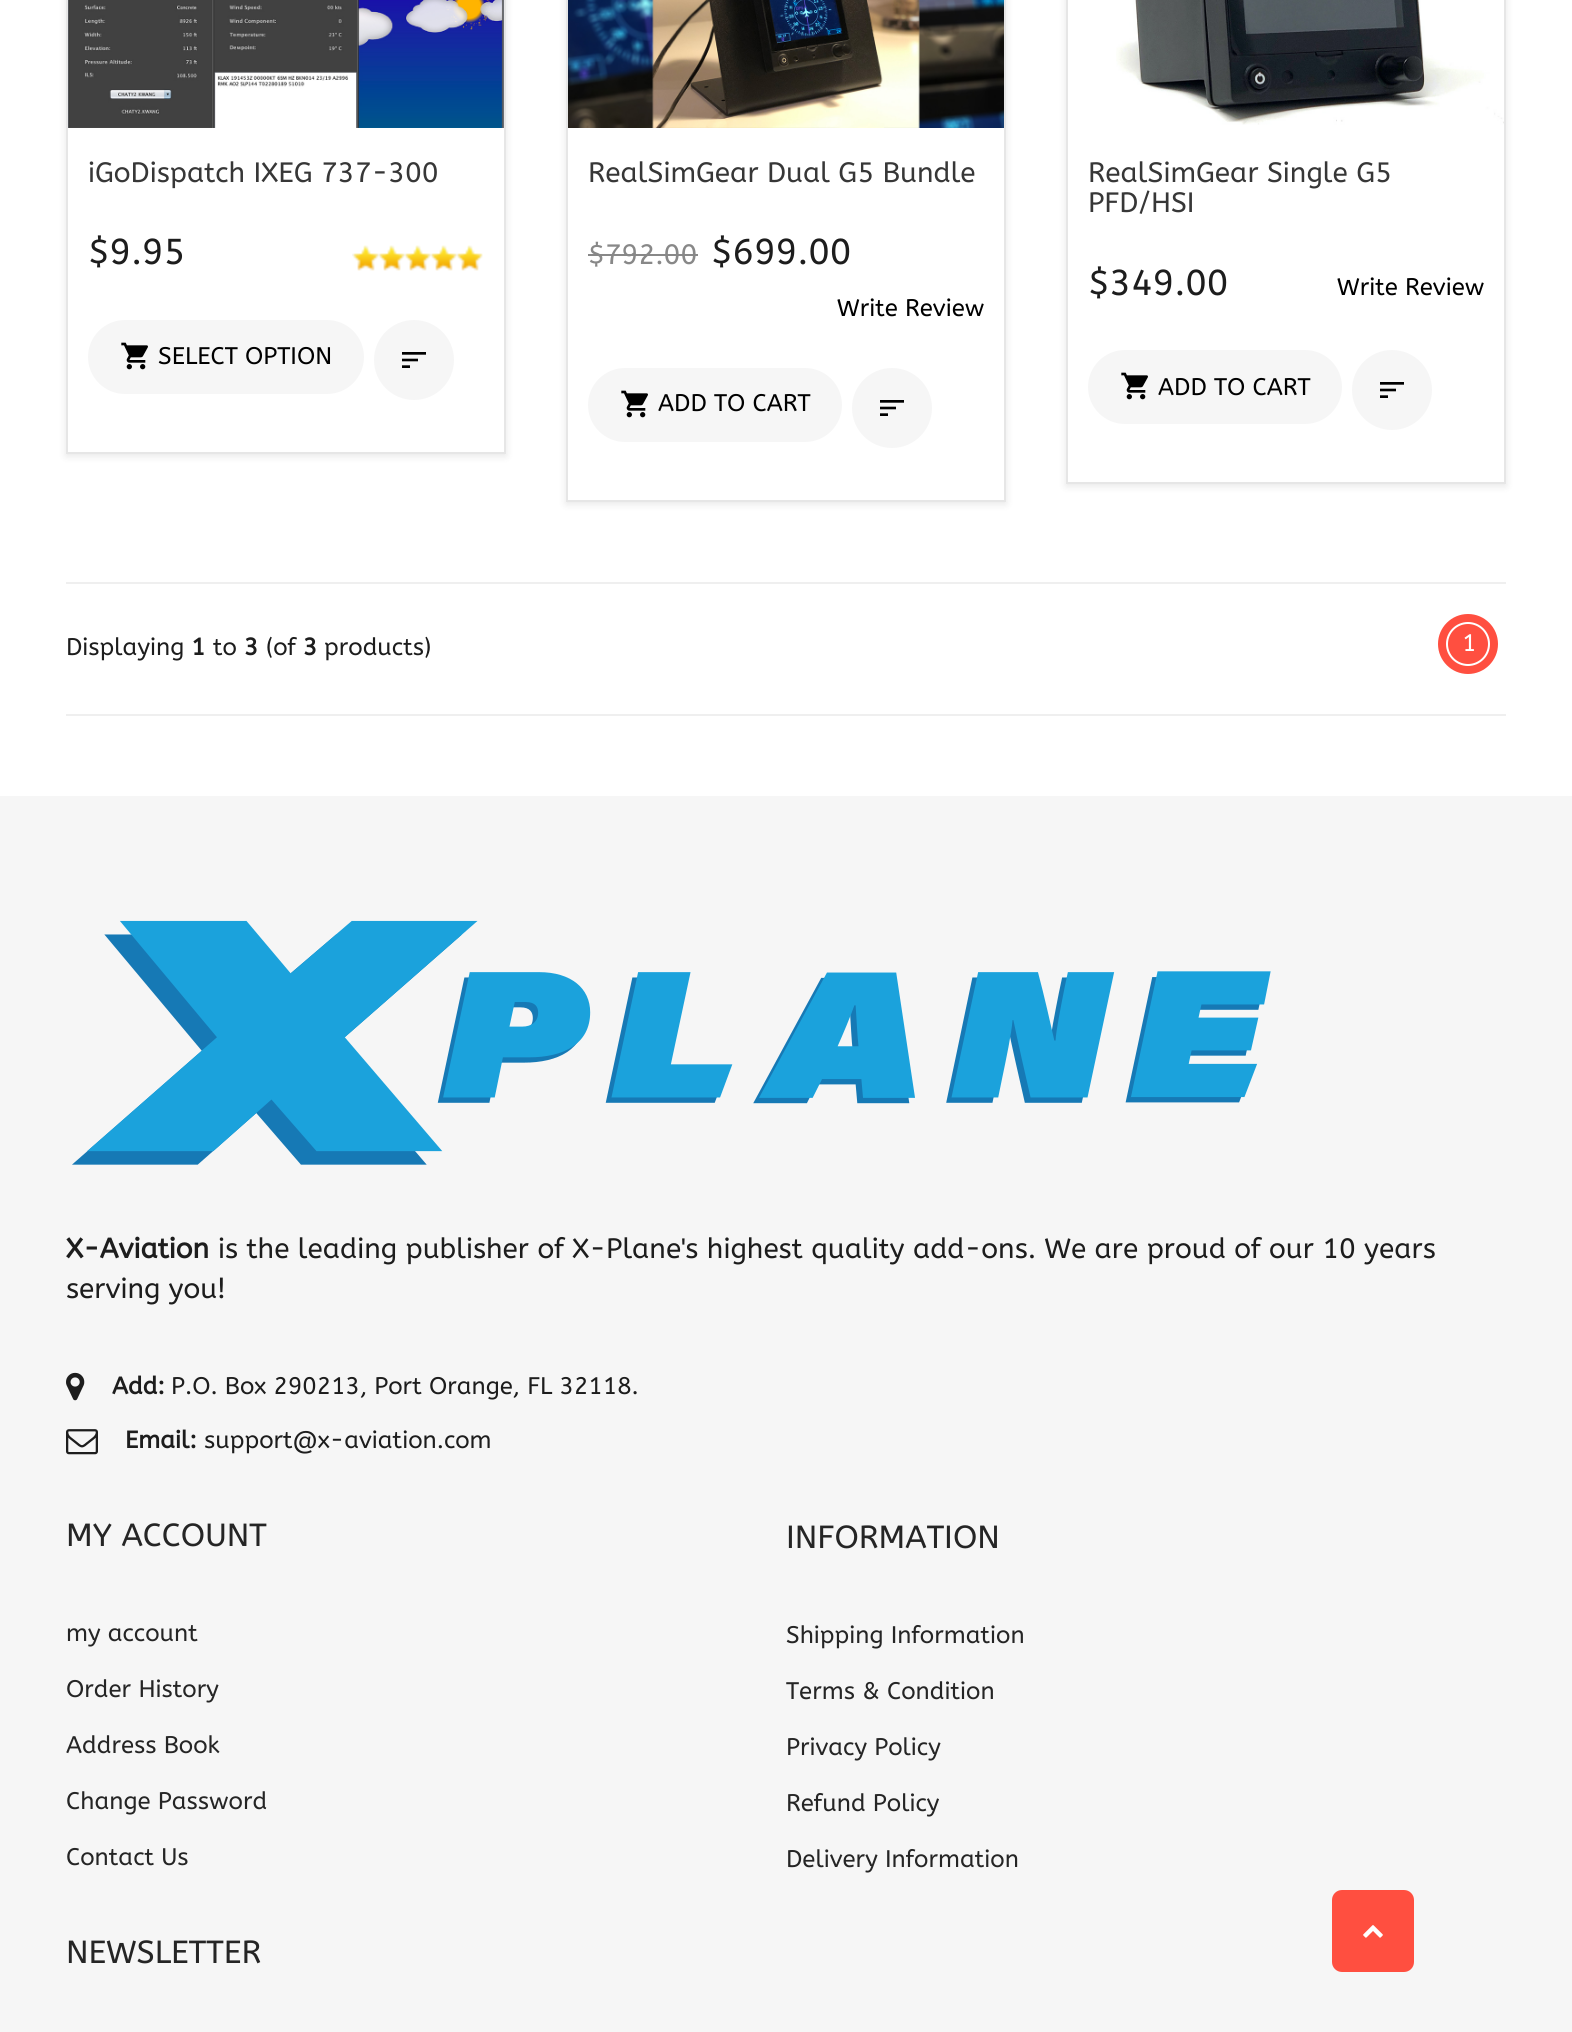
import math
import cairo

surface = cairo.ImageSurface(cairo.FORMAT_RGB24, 1572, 2032)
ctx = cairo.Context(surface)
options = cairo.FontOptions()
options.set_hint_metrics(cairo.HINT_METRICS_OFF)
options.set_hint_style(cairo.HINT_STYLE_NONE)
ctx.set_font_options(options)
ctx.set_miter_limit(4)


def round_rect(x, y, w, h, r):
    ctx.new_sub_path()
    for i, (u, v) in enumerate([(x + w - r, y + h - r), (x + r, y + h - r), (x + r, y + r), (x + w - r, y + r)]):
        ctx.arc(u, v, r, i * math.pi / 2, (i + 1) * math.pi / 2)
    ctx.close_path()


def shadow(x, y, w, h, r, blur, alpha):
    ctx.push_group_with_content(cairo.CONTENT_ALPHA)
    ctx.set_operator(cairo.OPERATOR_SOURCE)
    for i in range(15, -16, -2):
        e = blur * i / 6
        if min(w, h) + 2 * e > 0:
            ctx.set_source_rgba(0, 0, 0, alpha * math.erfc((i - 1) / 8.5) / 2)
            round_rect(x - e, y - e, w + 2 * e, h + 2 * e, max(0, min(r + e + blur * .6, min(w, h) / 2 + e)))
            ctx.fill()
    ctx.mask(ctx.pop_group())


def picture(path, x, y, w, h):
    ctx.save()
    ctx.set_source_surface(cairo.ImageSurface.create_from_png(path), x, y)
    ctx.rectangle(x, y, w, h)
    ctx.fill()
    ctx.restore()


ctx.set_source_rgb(1, 1, 1)
ctx.paint()
ctx.save()
ctx.set_fill_rule(cairo.FILL_RULE_EVEN_ODD)
ctx.new_path()
ctx.move_to(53, 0)
ctx.line_to(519, 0)
ctx.line_to(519, 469)
ctx.line_to(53, 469)
ctx.close_path()
ctx.move_to(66, -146)
ctx.line_to(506, -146)
ctx.line_to(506, 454)
ctx.line_to(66, 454)
ctx.close_path()
ctx.clip()
ctx.set_source_rgb(0, 0, 0)
shadow(66, -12, 440, 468, 0, 4, 0.1)
ctx.restore()
ctx.rectangle(67, -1, 438, 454)
ctx.set_source_rgb(0.902, 0.902, 0.902)
ctx.stroke()
picture("img1.png", 68, 0, 436, 128)
ctx.select_font_face("ABeeZee")
ctx.set_font_size(28)
ctx.set_source_rgb(0.216, 0.216, 0.216)
ctx.move_to(88, 182)
ctx.show_text("iGoDispatch IXEG 737-300")
ctx.set_font_size(36)
ctx.set_source_rgb(0.114, 0.114, 0.114)
ctx.move_to(88, 264)
ctx.show_text("$9.95")
picture("img2.png", 352, 245, 131, 26)
ctx.set_source_rgb(0.961, 0.961, 0.961)
round_rect(88, 320, 276, 74, 37)
ctx.fill()
picture("img3.png", 121, 342, 27, 28)
ctx.set_font_size(24)
ctx.set_source_rgb(0, 0, 0)
ctx.move_to(158, 364)
ctx.show_text("SELECT OPTION")
ctx.set_source_rgb(0.961, 0.961, 0.961)
ctx.new_path()
ctx.arc(414, 360, 40, 0, 2 * math.pi)
ctx.fill()
picture("img4.png", 402, 352, 24, 16)
ctx.save()
ctx.set_fill_rule(cairo.FILL_RULE_EVEN_ODD)
ctx.new_path()
ctx.move_to(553, 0)
ctx.line_to(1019, 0)
ctx.line_to(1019, 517)
ctx.line_to(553, 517)
ctx.close_path()
ctx.move_to(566, -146)
ctx.line_to(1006, -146)
ctx.line_to(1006, 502)
ctx.line_to(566, 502)
ctx.close_path()
ctx.clip()
ctx.set_source_rgb(0, 0, 0)
shadow(566, -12, 440, 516, 0, 4, 0.1)
ctx.restore()
ctx.rectangle(567, -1, 438, 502)
ctx.set_source_rgb(0.902, 0.902, 0.902)
ctx.stroke()
picture("img5.png", 568, 0, 436, 128)
ctx.set_font_size(28)
ctx.set_source_rgb(0.216, 0.216, 0.216)
ctx.move_to(588, 182)
ctx.show_text("RealSimGear Dual G5 Bundle")
ctx.set_source_rgb(0.533, 0.533, 0.533)
ctx.move_to(588, 264)
ctx.show_text("$792.00")
ctx.rectangle(588, 254, 110, 2)
ctx.fill()
ctx.set_font_size(36)
ctx.set_source_rgb(0.114, 0.114, 0.114)
ctx.move_to(711, 264)
ctx.show_text("$699.00")
ctx.set_font_size(24)
ctx.set_source_rgb(0, 0, 0)
ctx.move_to(837, 316)
ctx.show_text("Write Review")
ctx.set_source_rgb(0.961, 0.961, 0.961)
round_rect(588, 368, 254, 74, 37)
ctx.fill()
picture("img3.png", 621, 390, 27, 28)
ctx.set_source_rgb(0, 0, 0)
ctx.move_to(658, 411)
ctx.show_text("ADD TO CART")
ctx.set_source_rgb(0.961, 0.961, 0.961)
ctx.new_path()
ctx.arc(892, 408, 40, 0, 2 * math.pi)
ctx.fill()
picture("img4.png", 880, 400, 24, 16)
ctx.save()
ctx.set_fill_rule(cairo.FILL_RULE_EVEN_ODD)
ctx.new_path()
ctx.move_to(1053, 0)
ctx.line_to(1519, 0)
ctx.line_to(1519, 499)
ctx.line_to(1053, 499)
ctx.close_path()
ctx.move_to(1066, -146)
ctx.line_to(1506, -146)
ctx.line_to(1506, 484)
ctx.line_to(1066, 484)
ctx.close_path()
ctx.clip()
ctx.set_source_rgb(0, 0, 0)
shadow(1066, -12, 440, 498, 0, 4, 0.1)
ctx.restore()
ctx.rectangle(1067, -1, 438, 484)
ctx.set_source_rgb(0.902, 0.902, 0.902)
ctx.stroke()
picture("img6.png", 1116, 0, 388, 125)
ctx.set_font_size(28)
ctx.set_source_rgb(0.216, 0.216, 0.216)
ctx.move_to(1088, 182)
ctx.show_text("RealSimGear Single G5")
ctx.move_to(1088, 212)
ctx.show_text("PFD/HSI")
ctx.set_font_size(36)
ctx.set_source_rgb(0.114, 0.114, 0.114)
ctx.move_to(1088, 295)
ctx.show_text("$349.00")
ctx.set_font_size(24)
ctx.set_source_rgb(0, 0, 0)
ctx.move_to(1337, 295)
ctx.show_text("Write Review")
ctx.set_source_rgb(0.961, 0.961, 0.961)
round_rect(1088, 350, 254, 74, 37)
ctx.fill()
picture("img3.png", 1121, 372, 27, 28)
ctx.set_source_rgb(0, 0, 0)
ctx.move_to(1158, 395)
ctx.show_text("ADD TO CART")
ctx.set_source_rgb(0.961, 0.961, 0.961)
ctx.new_path()
ctx.arc(1392, 390, 40, 0, 2 * math.pi)
ctx.fill()
picture("img4.png", 1380, 382, 24, 16)
ctx.set_source_rgb(0.937, 0.937, 0.937)
ctx.rectangle(66, 582, 1440, 2)
ctx.fill()
ctx.rectangle(66, 714, 1440, 2)
ctx.fill()
ctx.set_source_rgb(0.114, 0.114, 0.114)
ctx.move_to(66, 655)
ctx.show_text("Displaying")
ctx.select_font_face("ABeeZee", cairo.FONT_SLANT_NORMAL, cairo.FONT_WEIGHT_BOLD)
ctx.move_to(191, 655)
ctx.show_text("1")
ctx.select_font_face("ABeeZee")
ctx.move_to(213, 655)
ctx.show_text("to")
ctx.select_font_face("ABeeZee", cairo.FONT_SLANT_NORMAL, cairo.FONT_WEIGHT_BOLD)
ctx.move_to(244, 655)
ctx.show_text("3")
ctx.select_font_face("ABeeZee")
ctx.move_to(266, 655)
ctx.show_text("(of")
ctx.select_font_face("ABeeZee", cairo.FONT_SLANT_NORMAL, cairo.FONT_WEIGHT_BOLD)
ctx.move_to(303, 655)
ctx.show_text("3")
ctx.select_font_face("ABeeZee")
ctx.move_to(324, 655)
ctx.show_text("products)")
ctx.set_source_rgb(1, 0.31, 0.251)
ctx.new_path()
ctx.arc(1468, 644, 30, 0, 2 * math.pi)
ctx.fill()
ctx.arc(1468, 644, 21, 0, 2 * math.pi)
ctx.set_source_rgb(1, 1, 1)
ctx.stroke()
ctx.move_to(1462, 651)
ctx.show_text("1")
ctx.set_source_rgb(0.961, 0.961, 0.961)
ctx.rectangle(0, 796, 1572, 1236)
ctx.fill()
picture("img7.png", 72, 920, 1199, 245)
ctx.select_font_face("ABeeZee", cairo.FONT_SLANT_NORMAL, cairo.FONT_WEIGHT_BOLD)
ctx.set_font_size(28)
ctx.set_source_rgb(0.114, 0.114, 0.114)
ctx.move_to(66, 1258)
ctx.show_text("X-Aviation")
ctx.select_font_face("ABeeZee")
ctx.move_to(218, 1258)
ctx.show_text("is the leading publisher of X-Plane's highest quality add-ons. We are proud of our 10 years")
ctx.move_to(66, 1298)
ctx.show_text("serving you!")
picture("img8.png", 66, 1372, 19, 29)
ctx.select_font_face("ABeeZee", cairo.FONT_SLANT_NORMAL, cairo.FONT_WEIGHT_BOLD)
ctx.set_font_size(24)
ctx.move_to(112, 1394)
ctx.show_text("Add:")
ctx.select_font_face("ABeeZee")
ctx.move_to(171, 1394)
ctx.show_text("P.O. Box 290213, Port Orange, FL 32118.")
picture("img9.png", 66, 1429, 32, 26)
ctx.select_font_face("ABeeZee", cairo.FONT_SLANT_NORMAL, cairo.FONT_WEIGHT_BOLD)
ctx.move_to(125, 1448)
ctx.show_text("Email:")
ctx.select_font_face("ABeeZee")
ctx.move_to(204, 1448)
ctx.show_text("support@x-aviation.com")
ctx.set_font_size(32)
ctx.set_source_rgb(0.145, 0.145, 0.145)
ctx.move_to(66, 1546)
ctx.show_text("MY ACCOUNT")
ctx.set_font_size(24)
ctx.move_to(66, 1641)
ctx.show_text("my account")
ctx.move_to(66, 1697)
ctx.show_text("Order History")
ctx.move_to(66, 1753)
ctx.show_text("Address Book")
ctx.move_to(66, 1809)
ctx.show_text("Change Password")
ctx.move_to(66, 1865)
ctx.show_text("Contact Us")
ctx.set_font_size(32)
ctx.move_to(786, 1548)
ctx.show_text("INFORMATION")
ctx.set_font_size(24)
ctx.move_to(786, 1643)
ctx.show_text("Shipping Information")
ctx.move_to(786, 1699)
ctx.show_text("Terms & Condition")
ctx.move_to(786, 1755)
ctx.show_text("Privacy Policy")
ctx.move_to(786, 1811)
ctx.show_text("Refund Policy")
ctx.move_to(786, 1867)
ctx.show_text("Delivery Information")
ctx.set_font_size(32)
ctx.move_to(66, 1963)
ctx.show_text("NEWSLETTER")
ctx.set_source_rgb(1, 0.31, 0.251)
round_rect(1332, 1890, 82, 82, 10)
ctx.fill()
picture("img10.png", 1363, 1925, 20, 13)
surface.write_to_png("page.png")
